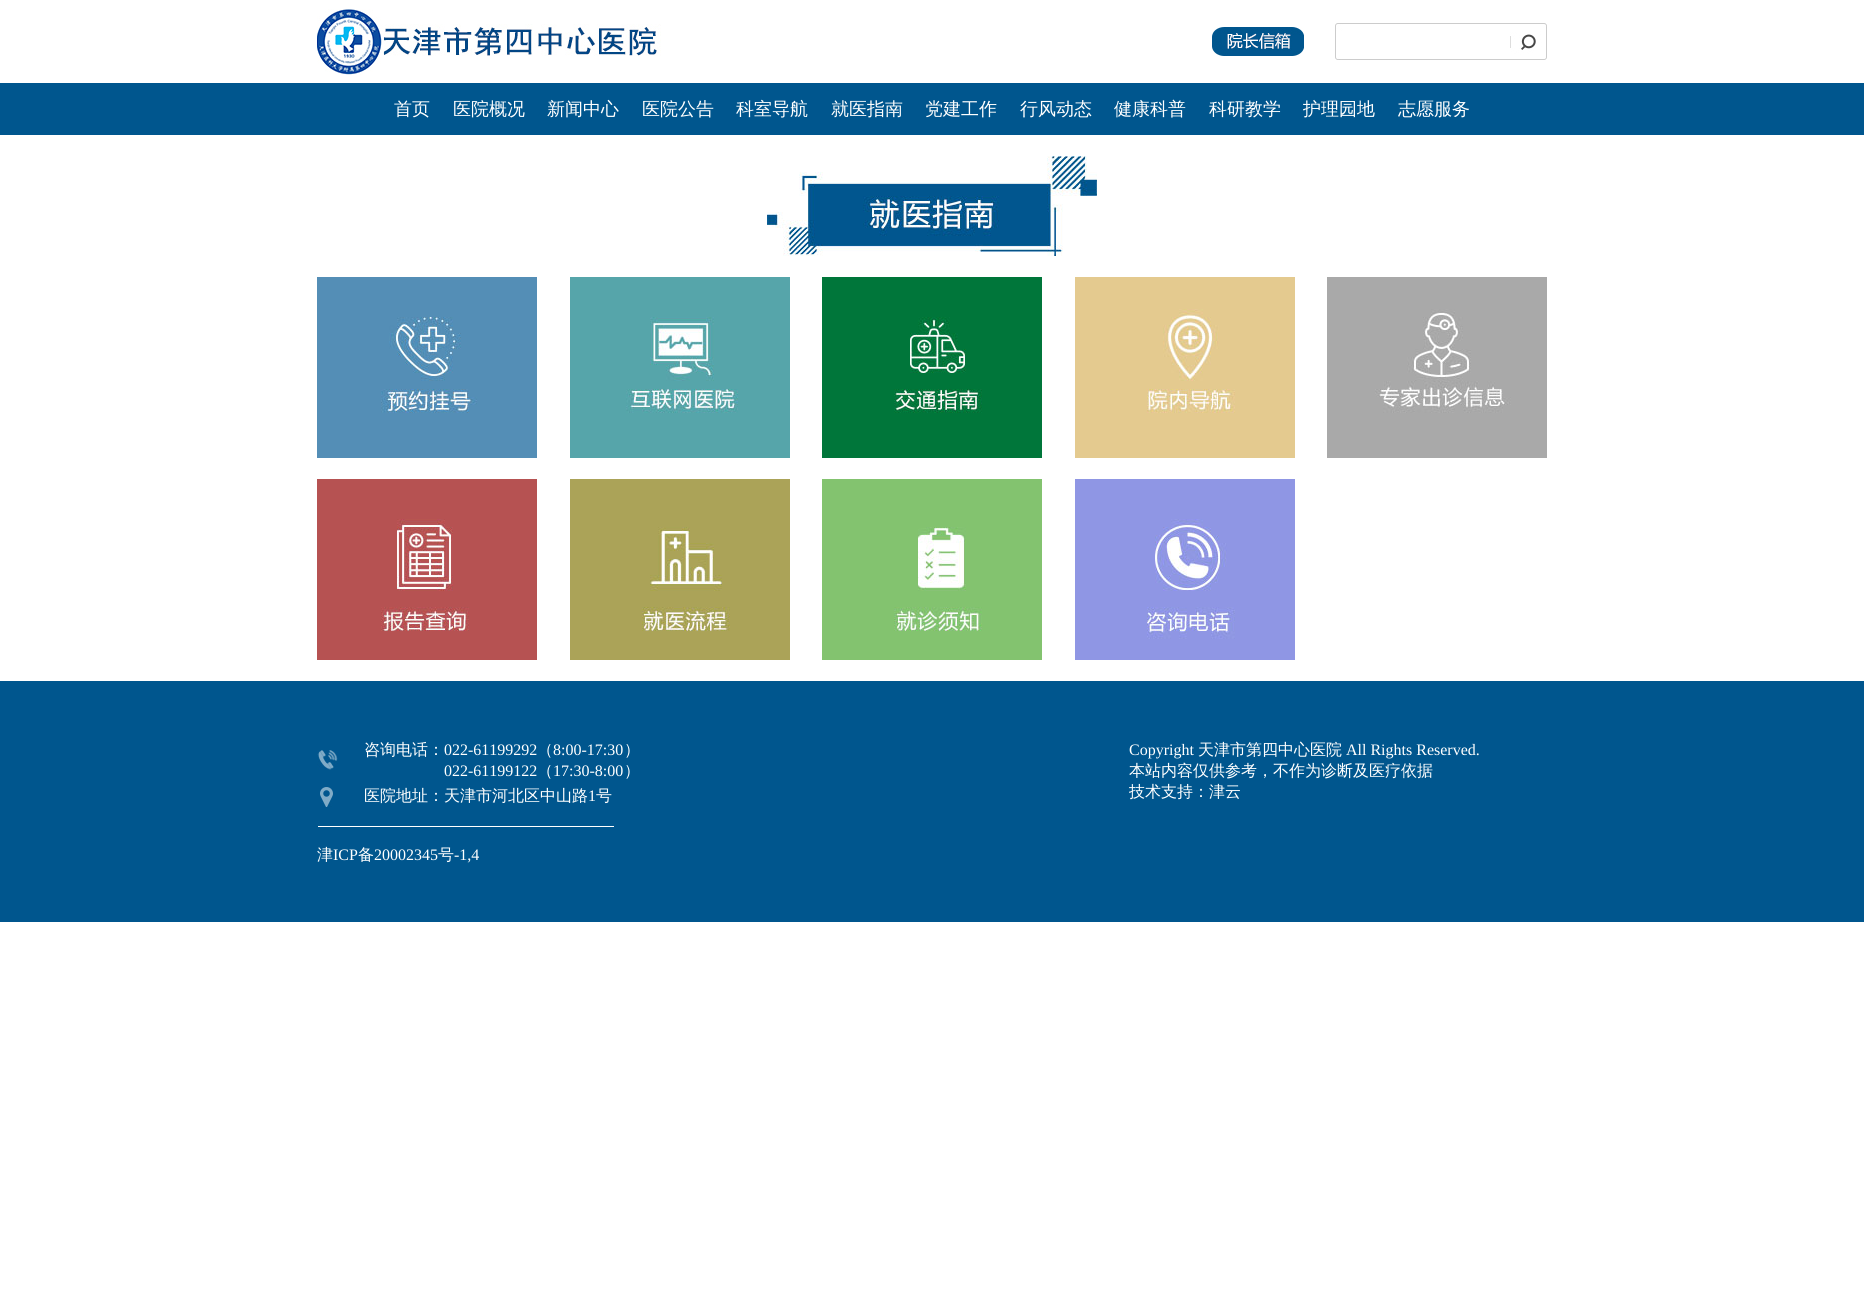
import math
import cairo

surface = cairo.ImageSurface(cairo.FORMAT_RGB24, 1864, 1295)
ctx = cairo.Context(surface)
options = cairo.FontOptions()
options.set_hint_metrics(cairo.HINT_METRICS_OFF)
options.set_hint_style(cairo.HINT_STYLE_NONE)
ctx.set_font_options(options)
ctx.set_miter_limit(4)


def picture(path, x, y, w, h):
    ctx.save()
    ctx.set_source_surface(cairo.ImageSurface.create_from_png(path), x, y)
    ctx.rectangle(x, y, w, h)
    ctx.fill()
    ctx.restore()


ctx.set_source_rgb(1, 1, 1)
ctx.paint()
picture("img1.png", 317, 9, 344, 66)
picture("img2.png", 1212, 27, 92, 29)
picture("img3.png", 1335, 23, 175, 37)
picture("img4.png", 1510, 23, 37, 37)
ctx.set_source_rgb(0, 0.337, 0.557)
ctx.rectangle(0, 83, 1864, 52)
ctx.fill()
ctx.select_font_face("WenQuanYi Zen Hei Medium")
ctx.set_font_size(18)
ctx.set_source_rgb(1, 1, 1)
ctx.move_to(394, 115)
ctx.show_text("首页")
ctx.move_to(453, 115)
ctx.show_text("医院概况")
ctx.move_to(547, 115)
ctx.show_text("新闻中心")
ctx.move_to(642, 115)
ctx.show_text("医院公告")
ctx.move_to(736, 115)
ctx.show_text("科室导航")
ctx.move_to(831, 115)
ctx.show_text("就医指南")
ctx.move_to(925, 115)
ctx.show_text("党建工作")
ctx.move_to(1020, 115)
ctx.show_text("行风动态")
ctx.move_to(1114, 115)
ctx.show_text("健康科普")
ctx.move_to(1209, 115)
ctx.show_text("科研教学")
ctx.move_to(1303, 115)
ctx.show_text("护理园地")
ctx.move_to(1398, 115)
ctx.show_text("志愿服务")
picture("img5.png", 767, 156, 330, 100)
picture("img6.png", 317, 277, 220, 181)
picture("img7.png", 570, 277, 220, 181)
picture("img8.png", 822, 277, 220, 181)
picture("img9.png", 1075, 277, 220, 181)
picture("img10.png", 1327, 277, 220, 181)
picture("img11.png", 317, 479, 220, 181)
picture("img12.png", 570, 479, 220, 181)
picture("img13.png", 822, 479, 220, 181)
picture("img14.png", 1075, 479, 220, 181)
ctx.set_source_rgb(0, 0.337, 0.557)
ctx.rectangle(0, 681, 1864, 241)
ctx.fill()
picture("img15.png", 317, 750, 21, 20)
ctx.set_font_size(16)
ctx.set_source_rgb(1, 1, 1)
ctx.move_to(364, 755)
ctx.show_text("咨询电话：")
ctx.select_font_face("Liberation Serif")
ctx.move_to(444, 755)
ctx.show_text("022-61199292")
ctx.select_font_face("WenQuanYi Zen Hei Medium")
ctx.move_to(537, 755)
ctx.show_text("（")
ctx.select_font_face("Liberation Serif")
ctx.move_to(553, 755)
ctx.show_text("8:00-17:30")
ctx.select_font_face("WenQuanYi Zen Hei Medium")
ctx.move_to(624, 755)
ctx.show_text("）")
ctx.select_font_face("Liberation Serif")
ctx.move_to(444, 776)
ctx.show_text("022-61199122")
ctx.select_font_face("WenQuanYi Zen Hei Medium")
ctx.move_to(537, 776)
ctx.show_text("（")
ctx.select_font_face("Liberation Serif")
ctx.move_to(553, 776)
ctx.show_text("17:30-8:00")
ctx.select_font_face("WenQuanYi Zen Hei Medium")
ctx.move_to(624, 776)
ctx.show_text("）")
picture("img16.png", 320, 787, 13, 20)
ctx.move_to(364, 801)
ctx.show_text("医院地址：天津市河北区中山路")
ctx.select_font_face("Liberation Serif")
ctx.move_to(588, 801)
ctx.show_text("1")
ctx.select_font_face("WenQuanYi Zen Hei Medium")
ctx.move_to(596, 801)
ctx.show_text("号")
ctx.rectangle(318, 826, 296, 1)
ctx.fill()
ctx.move_to(317, 860)
ctx.show_text("津")
ctx.select_font_face("Liberation Serif")
ctx.move_to(333, 860)
ctx.show_text("ICP")
ctx.select_font_face("WenQuanYi Zen Hei Medium")
ctx.move_to(358, 860)
ctx.show_text("备")
ctx.select_font_face("Liberation Serif")
ctx.move_to(374, 860)
ctx.show_text("20002345")
ctx.select_font_face("WenQuanYi Zen Hei Medium")
ctx.move_to(438, 860)
ctx.show_text("号")
ctx.select_font_face("Liberation Serif")
ctx.move_to(454, 860)
ctx.show_text("-1,4")
ctx.move_to(1129, 755)
ctx.show_text("Copyright")
ctx.select_font_face("WenQuanYi Zen Hei Medium")
ctx.move_to(1198, 755)
ctx.show_text("天津市第四中心医院")
ctx.select_font_face("Liberation Serif")
ctx.move_to(1346, 755)
ctx.show_text("All Rights Reserved.")
ctx.select_font_face("WenQuanYi Zen Hei Medium")
ctx.move_to(1129, 776)
ctx.show_text("本站内容仅供参考，不作为诊断及医疗依据")
ctx.move_to(1129, 797)
ctx.show_text("技术支持：津云")
surface.write_to_png("page.png")
